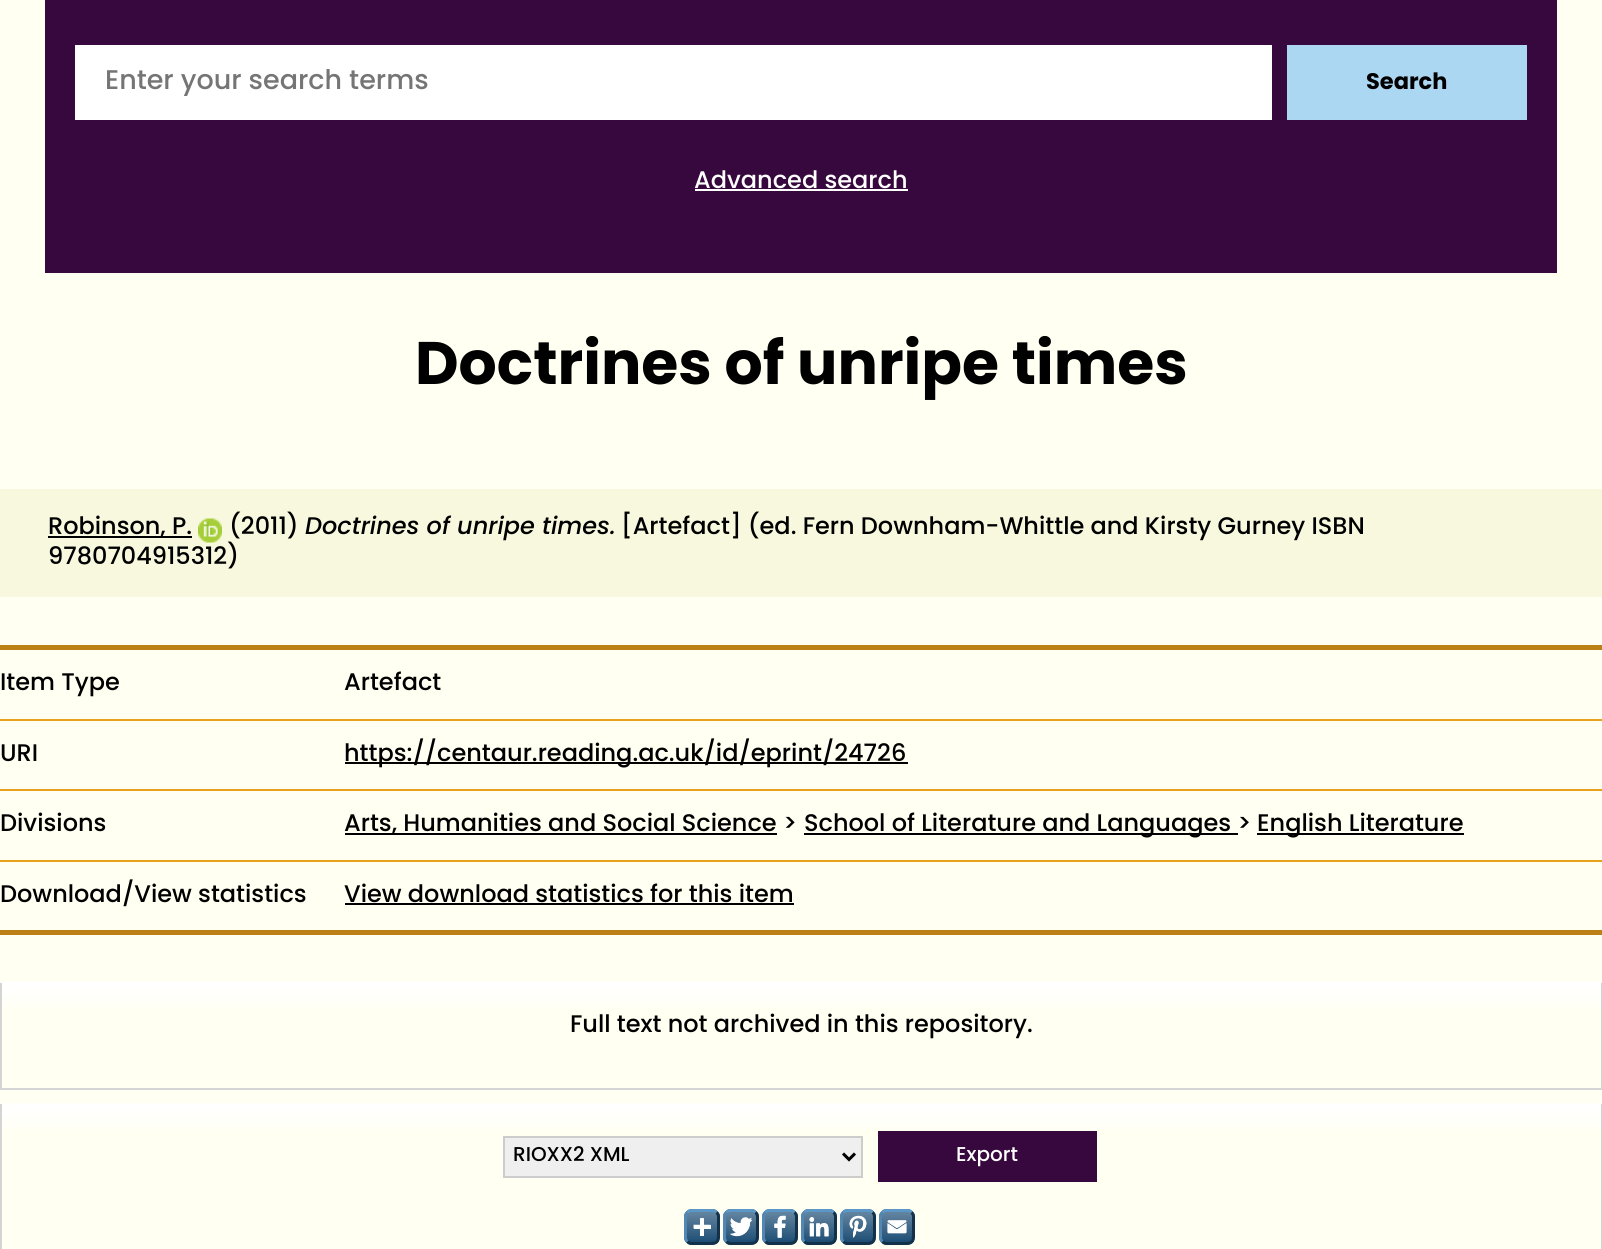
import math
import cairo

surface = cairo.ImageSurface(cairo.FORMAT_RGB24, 1602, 1249)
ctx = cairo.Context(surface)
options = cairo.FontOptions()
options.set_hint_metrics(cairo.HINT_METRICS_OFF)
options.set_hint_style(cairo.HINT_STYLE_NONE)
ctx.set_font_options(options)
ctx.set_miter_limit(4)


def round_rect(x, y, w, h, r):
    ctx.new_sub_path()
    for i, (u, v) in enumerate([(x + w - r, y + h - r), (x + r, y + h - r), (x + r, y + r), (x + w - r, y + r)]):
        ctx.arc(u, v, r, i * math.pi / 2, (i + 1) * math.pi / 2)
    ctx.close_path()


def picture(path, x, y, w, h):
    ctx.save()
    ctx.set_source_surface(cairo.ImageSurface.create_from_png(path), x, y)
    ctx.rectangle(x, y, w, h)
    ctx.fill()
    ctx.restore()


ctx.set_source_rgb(1, 1, 0.949)
ctx.paint()
ctx.set_source_rgb(0.216, 0.035, 0.239)
ctx.rectangle(45, 0, 1512, 273)
ctx.fill()
ctx.set_source_rgb(1, 1, 1)
ctx.rectangle(75, 45, 1197, 75)
ctx.fill()
ctx.select_font_face("Poppins Medium")
ctx.set_font_size(27)
ctx.set_source_rgb(0.459, 0.459, 0.459)
ctx.move_to(105, 89)
ctx.show_text("Enter your search terms")
ctx.set_source_rgb(0.675, 0.843, 0.949)
ctx.rectangle(1287, 45, 240, 75)
ctx.fill()
ctx.select_font_face("Poppins", cairo.FONT_SLANT_NORMAL, cairo.FONT_WEIGHT_BOLD)
ctx.set_font_size(22.5)
ctx.set_source_rgb(0, 0, 0)
ctx.move_to(1366, 89)
ctx.show_text("Search")
ctx.select_font_face("Poppins Medium")
ctx.set_font_size(24)
ctx.set_source_rgb(1, 1, 1)
ctx.move_to(694, 188)
ctx.show_text("Advanced search")
ctx.rectangle(695, 189, 213, 2)
ctx.fill()
ctx.select_font_face("Poppins", cairo.FONT_SLANT_NORMAL, cairo.FONT_WEIGHT_BOLD)
ctx.set_font_size(60)
ctx.set_source_rgb(0, 0, 0)
ctx.move_to(415, 384)
ctx.show_text("Doctrines of unripe times")
ctx.set_source_rgb(0.969, 0.969, 0.871)
ctx.rectangle(0, 489, 1602, 108)
ctx.fill()
ctx.set_source_rgb(0, 0, 0)
ctx.rectangle(48, 536, 144, 2)
ctx.fill()
ctx.select_font_face("Poppins Medium")
ctx.set_font_size(24)
ctx.move_to(48, 534)
ctx.show_text("Robinson, P.")
ctx.move_to(48, 564)
ctx.show_text("9780704915312)")
picture("img1.png", 198, 518, 24, 25)
ctx.move_to(229, 534)
ctx.show_text("(2011)")
ctx.select_font_face("Poppins Medium", cairo.FONT_SLANT_ITALIC)
ctx.move_to(305, 534)
ctx.show_text("Doctrines of unripe times.")
ctx.select_font_face("Poppins Medium")
ctx.move_to(621, 534)
ctx.show_text("[Artefact] (ed. Fern Downham-Whittle and Kirsty Gurney ISBN")
ctx.set_source_rgb(0.733, 0.506, 0.086)
ctx.rectangle(0, 645, 1602, 5)
ctx.fill()
ctx.rectangle(0, 930, 1602, 5)
ctx.fill()
ctx.set_source_rgb(0.91, 0.631, 0.11)
ctx.rectangle(0, 719, 1602, 2)
ctx.fill()
ctx.set_source_rgb(0, 0, 0)
ctx.move_to(0, 690)
ctx.show_text("Item Type")
ctx.move_to(344, 690)
ctx.show_text("Artefact")
ctx.set_source_rgb(0.91, 0.631, 0.11)
ctx.rectangle(0, 789, 1602, 2)
ctx.fill()
ctx.set_source_rgb(0, 0, 0)
ctx.move_to(0, 761)
ctx.show_text("URI")
ctx.rectangle(345, 762, 563, 2)
ctx.fill()
ctx.move_to(344, 761)
ctx.show_text("https://centaur.reading.ac.uk/id/eprint/24726")
ctx.set_source_rgb(0.91, 0.631, 0.11)
ctx.rectangle(0, 860, 1602, 2)
ctx.fill()
ctx.set_source_rgb(0, 0, 0)
ctx.move_to(0, 831)
ctx.show_text("Divisions")
ctx.rectangle(345, 833, 432, 2)
ctx.fill()
ctx.move_to(344, 831)
ctx.show_text("Arts, Humanities and Social Science >")
ctx.rectangle(804, 833, 434, 2)
ctx.fill()
ctx.move_to(804, 831)
ctx.show_text("School of Literature and Languages >")
ctx.rectangle(1257, 833, 207, 2)
ctx.fill()
ctx.move_to(1257, 831)
ctx.show_text("English Literature")
ctx.move_to(0, 902)
ctx.show_text("Download/View statistics")
ctx.move_to(344, 902)
ctx.show_text("View download statistics for this item")
ctx.rectangle(345, 903, 449, 2)
ctx.fill()
picture("img2.png", 0, 982, 1602, 26)
ctx.set_source_rgb(0.831, 0.831, 0.831)
ctx.rectangle(1601, 983, 1, 106)
ctx.fill()
ctx.rectangle(0, 1088, 1602, 2)
ctx.fill()
ctx.rectangle(0, 983, 2, 106)
ctx.fill()
ctx.set_source_rgb(0, 0, 0)
ctx.move_to(570, 1032)
ctx.show_text("Full text not archived in this repository.")
picture("img3.png", 0, 1103, 1602, 26)
ctx.set_source_rgb(0.831, 0.831, 0.831)
ctx.rectangle(1601, 1104, 1, 145)
ctx.fill()
ctx.rectangle(0, 1104, 2, 145)
ctx.fill()
ctx.set_source_rgb(0.937, 0.937, 0.937)
ctx.rectangle(504, 1137, 358, 40)
ctx.fill_preserve()
ctx.set_source_rgb(0.8, 0.8, 0.8)
ctx.stroke()
ctx.new_path()
ctx.move_to(843, 1153.5)
ctx.line_to(849, 1159.5)
ctx.line_to(855, 1153.5)
ctx.set_source_rgb(0, 0, 0)
ctx.set_line_width(3)
ctx.stroke()
ctx.set_font_size(20)
ctx.move_to(513, 1161)
ctx.show_text("RIOXX2 XML")
ctx.set_source_rgb(0.216, 0.035, 0.239)
ctx.rectangle(878, 1131, 219, 51)
ctx.fill()
ctx.set_source_rgb(1, 1, 1)
ctx.move_to(956, 1161)
ctx.show_text("Export")
ctx.set_source_rgb(0.122, 0.31, 0.463)
round_rect(684, 1209, 36, 36, 8)
ctx.fill()
picture("img4.png", 684, 1211, 36, 29)
ctx.new_path()
ctx.move_to(687.5, 1212.5)
ctx.curve_to(688.5, 1211, 690, 1210.5, 691.5, 1210.5)
ctx.line_to(712.5, 1210.5)
ctx.curve_to(714, 1210.5, 715.5, 1211, 716.5, 1212.5)
ctx.set_source_rgb(0.357, 0.592, 0.78)
ctx.stroke()
ctx.set_source_rgb(0.122, 0.31, 0.463)
round_rect(723, 1209, 36, 36, 8)
ctx.fill()
picture("img5.png", 723, 1211, 36, 29)
ctx.new_path()
ctx.move_to(726.5, 1212.5)
ctx.curve_to(727.5, 1211, 729, 1210.5, 730.5, 1210.5)
ctx.line_to(751.5, 1210.5)
ctx.curve_to(753, 1210.5, 754.5, 1211, 755.5, 1212.5)
ctx.set_source_rgb(0.357, 0.592, 0.78)
ctx.stroke()
ctx.set_source_rgb(0.122, 0.31, 0.463)
round_rect(762, 1209, 36, 36, 8)
ctx.fill()
picture("img6.png", 762, 1211, 36, 29)
ctx.new_path()
ctx.move_to(765.5, 1212.5)
ctx.curve_to(766.5, 1211, 768, 1210.5, 769.5, 1210.5)
ctx.line_to(790.5, 1210.5)
ctx.curve_to(792, 1210.5, 793.5, 1211, 794.5, 1212.5)
ctx.set_source_rgb(0.357, 0.592, 0.78)
ctx.stroke()
ctx.set_source_rgb(0.122, 0.31, 0.463)
round_rect(801, 1209, 36, 36, 8)
ctx.fill()
picture("img7.png", 801, 1211, 36, 29)
ctx.new_path()
ctx.move_to(804.5, 1212.5)
ctx.curve_to(805.5, 1211, 807, 1210.5, 808.5, 1210.5)
ctx.line_to(829.5, 1210.5)
ctx.curve_to(831, 1210.5, 832.5, 1211, 833.5, 1212.5)
ctx.set_source_rgb(0.357, 0.592, 0.78)
ctx.stroke()
ctx.set_source_rgb(0.122, 0.31, 0.463)
round_rect(840, 1209, 36, 36, 8)
ctx.fill()
picture("img8.png", 840, 1211, 36, 29)
ctx.new_path()
ctx.move_to(843.5, 1212.5)
ctx.curve_to(844.5, 1211, 846, 1210.5, 847.5, 1210.5)
ctx.line_to(868.5, 1210.5)
ctx.curve_to(870, 1210.5, 871.5, 1211, 872.5, 1212.5)
ctx.set_source_rgb(0.357, 0.592, 0.78)
ctx.stroke()
ctx.set_source_rgb(0.122, 0.31, 0.463)
round_rect(879, 1209, 36, 36, 8)
ctx.fill()
picture("img9.png", 879, 1211, 36, 29)
ctx.new_path()
ctx.move_to(882.5, 1212.5)
ctx.curve_to(883.5, 1211, 885, 1210.5, 886.5, 1210.5)
ctx.line_to(907.5, 1210.5)
ctx.curve_to(909, 1210.5, 910.5, 1211, 911.5, 1212.5)
ctx.set_source_rgb(0.357, 0.592, 0.78)
ctx.stroke()
ctx.new_path()
ctx.move_to(716.5, 1212.5)
ctx.curve_to(719, 1214.5, 718.5, 1217, 718.5, 1220)
ctx.line_to(718.5, 1227)
ctx.curve_to(718.5, 1244.5, 719.5, 1243.5, 702, 1243.5)
ctx.line_to(695, 1243.5)
ctx.curve_to(692, 1243.5, 689.5, 1244, 687.5, 1241.5)
ctx.set_source_rgb(0.075, 0.196, 0.29)
ctx.stroke()
ctx.new_path()
ctx.move_to(687.5, 1241.5)
ctx.curve_to(686, 1240.5, 685.5, 1239, 685.5, 1237.5)
ctx.line_to(685.5, 1216.5)
ctx.curve_to(685.5, 1215, 686, 1213.5, 687.5, 1212.5)
ctx.set_source_rgb(0.322, 0.529, 0.702)
ctx.stroke()
ctx.new_path()
ctx.move_to(755.5, 1212.5)
ctx.curve_to(758, 1214.5, 757.5, 1217, 757.5, 1220)
ctx.line_to(757.5, 1227)
ctx.curve_to(757.5, 1244.5, 758.5, 1243.5, 741, 1243.5)
ctx.line_to(734, 1243.5)
ctx.curve_to(731, 1243.5, 728.5, 1244, 726.5, 1241.5)
ctx.set_source_rgb(0.075, 0.196, 0.29)
ctx.stroke()
ctx.new_path()
ctx.move_to(726.5, 1241.5)
ctx.curve_to(725, 1240.5, 724.5, 1239, 724.5, 1237.5)
ctx.line_to(724.5, 1216.5)
ctx.curve_to(724.5, 1215, 725, 1213.5, 726.5, 1212.5)
ctx.set_source_rgb(0.322, 0.529, 0.702)
ctx.stroke()
ctx.new_path()
ctx.move_to(794.5, 1212.5)
ctx.curve_to(797, 1214.5, 796.5, 1217, 796.5, 1220)
ctx.line_to(796.5, 1227)
ctx.curve_to(796.5, 1244.5, 797.5, 1243.5, 780, 1243.5)
ctx.line_to(773, 1243.5)
ctx.curve_to(770, 1243.5, 767.5, 1244, 765.5, 1241.5)
ctx.set_source_rgb(0.075, 0.196, 0.29)
ctx.stroke()
ctx.new_path()
ctx.move_to(765.5, 1241.5)
ctx.curve_to(764, 1240.5, 763.5, 1239, 763.5, 1237.5)
ctx.line_to(763.5, 1216.5)
ctx.curve_to(763.5, 1215, 764, 1213.5, 765.5, 1212.5)
ctx.set_source_rgb(0.322, 0.529, 0.702)
ctx.stroke()
ctx.new_path()
ctx.move_to(833.5, 1212.5)
ctx.curve_to(836, 1214.5, 835.5, 1217, 835.5, 1220)
ctx.line_to(835.5, 1227)
ctx.curve_to(835.5, 1244.5, 836.5, 1243.5, 819, 1243.5)
ctx.line_to(812, 1243.5)
ctx.curve_to(809, 1243.5, 806.5, 1244, 804.5, 1241.5)
ctx.set_source_rgb(0.075, 0.196, 0.29)
ctx.stroke()
ctx.new_path()
ctx.move_to(804.5, 1241.5)
ctx.curve_to(803, 1240.5, 802.5, 1239, 802.5, 1237.5)
ctx.line_to(802.5, 1216.5)
ctx.curve_to(802.5, 1215, 803, 1213.5, 804.5, 1212.5)
ctx.set_source_rgb(0.322, 0.529, 0.702)
ctx.stroke()
ctx.new_path()
ctx.move_to(872.5, 1212.5)
ctx.curve_to(875, 1214.5, 874.5, 1217, 874.5, 1220)
ctx.line_to(874.5, 1227)
ctx.curve_to(874.5, 1244.5, 875.5, 1243.5, 858, 1243.5)
ctx.line_to(851, 1243.5)
ctx.curve_to(848, 1243.5, 845.5, 1244, 843.5, 1241.5)
ctx.set_source_rgb(0.075, 0.196, 0.29)
ctx.stroke()
ctx.new_path()
ctx.move_to(843.5, 1241.5)
ctx.curve_to(842, 1240.5, 841.5, 1239, 841.5, 1237.5)
ctx.line_to(841.5, 1216.5)
ctx.curve_to(841.5, 1215, 842, 1213.5, 843.5, 1212.5)
ctx.set_source_rgb(0.322, 0.529, 0.702)
ctx.stroke()
ctx.new_path()
ctx.move_to(911.5, 1212.5)
ctx.curve_to(914, 1214.5, 913.5, 1217, 913.5, 1220)
ctx.line_to(913.5, 1227)
ctx.curve_to(913.5, 1244.5, 914.5, 1243.5, 897, 1243.5)
ctx.line_to(890, 1243.5)
ctx.curve_to(887, 1243.5, 884.5, 1244, 882.5, 1241.5)
ctx.set_source_rgb(0.075, 0.196, 0.29)
ctx.stroke()
ctx.new_path()
ctx.move_to(882.5, 1241.5)
ctx.curve_to(881, 1240.5, 880.5, 1239, 880.5, 1237.5)
ctx.line_to(880.5, 1216.5)
ctx.curve_to(880.5, 1215, 881, 1213.5, 882.5, 1212.5)
ctx.set_source_rgb(0.322, 0.529, 0.702)
ctx.stroke()
ctx.set_source_rgb(1, 1, 1)
ctx.rectangle(700, 1219, 4, 17)
ctx.fill()
picture("img10.png", 730, 1217, 23, 20)
picture("img11.png", 774, 1216, 12, 22)
picture("img12.png", 809, 1217, 20, 20)
picture("img13.png", 849, 1216, 18, 22)
ctx.rectangle(694, 1225, 17, 4)
ctx.fill()
picture("img14.png", 887, 1220, 20, 14)
surface.write_to_png("page.png")
